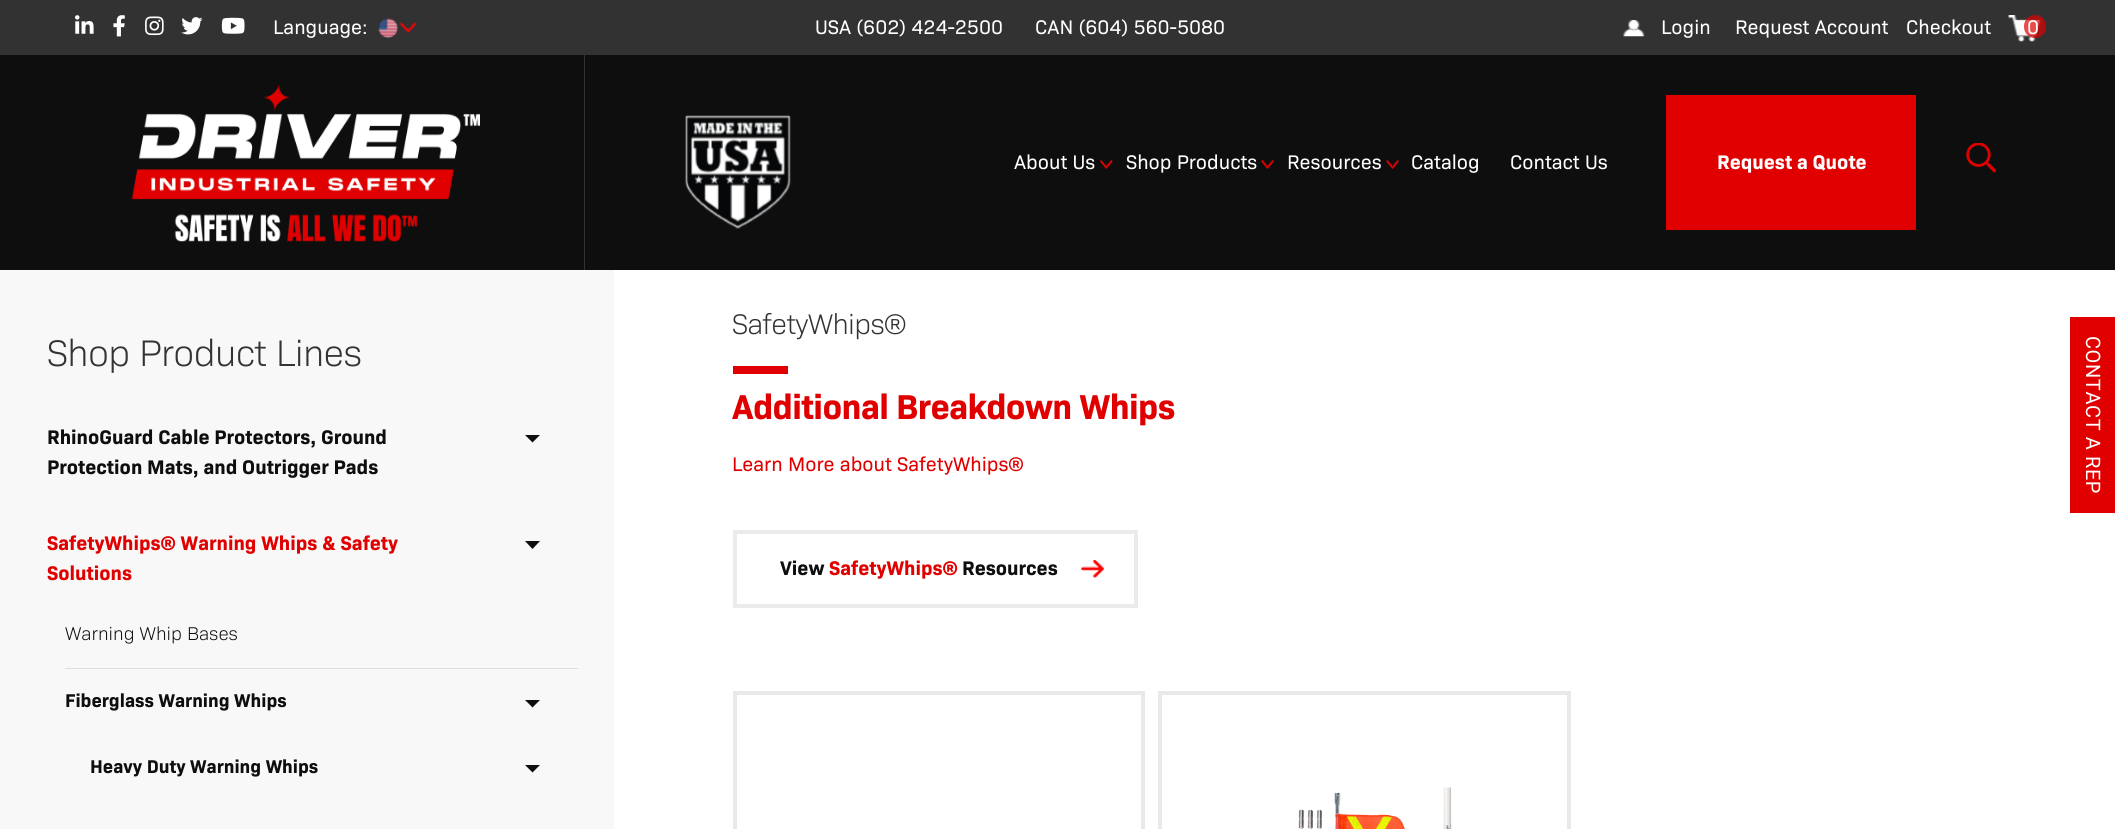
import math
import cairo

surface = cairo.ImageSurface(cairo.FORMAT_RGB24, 2115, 829)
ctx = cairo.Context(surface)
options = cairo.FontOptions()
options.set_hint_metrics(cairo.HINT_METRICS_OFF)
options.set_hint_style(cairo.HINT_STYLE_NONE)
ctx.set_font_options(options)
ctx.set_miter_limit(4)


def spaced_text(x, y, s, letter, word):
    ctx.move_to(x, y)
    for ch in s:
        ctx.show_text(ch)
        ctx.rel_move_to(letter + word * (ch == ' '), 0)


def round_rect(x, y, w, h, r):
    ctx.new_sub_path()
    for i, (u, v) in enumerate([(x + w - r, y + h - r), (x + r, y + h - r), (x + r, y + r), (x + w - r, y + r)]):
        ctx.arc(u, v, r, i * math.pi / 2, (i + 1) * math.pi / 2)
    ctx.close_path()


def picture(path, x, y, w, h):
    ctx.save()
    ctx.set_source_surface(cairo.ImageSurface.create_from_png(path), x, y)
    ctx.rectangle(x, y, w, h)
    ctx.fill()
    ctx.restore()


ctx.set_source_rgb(1, 1, 1)
ctx.paint()
ctx.set_source_rgb(0.059, 0.055, 0.055)
ctx.rectangle(0, 55, 2115, 215)
ctx.fill()
ctx.set_source_rgb(0.196, 0.196, 0.196)
ctx.rectangle(0, 0, 2115, 55)
ctx.fill()
picture("img1.png", 75, 15, 19, 19)
picture("img2.png", 113, 15, 12, 22)
picture("img3.png", 145, 16, 19, 20)
picture("img4.png", 181, 17, 22, 18)
picture("img5.png", 221, 17, 24, 17)
ctx.select_font_face("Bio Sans")
ctx.set_font_size(20)
ctx.set_source_rgb(1, 1, 1)
ctx.move_to(273, 34)
ctx.show_text("Language:")
picture("img6.png", 378, 18, 20, 20)
picture("img7.png", 399, 22, 18, 12)
ctx.move_to(815, 34)
ctx.show_text("USA (602) 424-2500")
ctx.move_to(1035, 34)
ctx.show_text("CAN (604) 560-5080")
picture("img8.png", 1623, 20, 22, 17)
ctx.move_to(1661, 34)
ctx.show_text("Login")
ctx.move_to(1735, 34)
ctx.show_text("Request Account")
ctx.move_to(1906, 34)
ctx.show_text("Checkout")
picture("img9.png", 2008, 15, 33, 27)
ctx.set_source_rgba(0.878, 0, 0, 0.7)
round_rect(2024, 15, 22, 23, 11)
ctx.fill()
ctx.set_source_rgb(1, 1, 1)
ctx.move_to(2027, 34)
ctx.show_text("0")
picture("img10.png", 131, 84, 349, 158)
ctx.set_source_rgb(0.196, 0.196, 0.196)
ctx.rectangle(584, 55, 1, 215)
ctx.fill()
picture("img11.png", 685, 115, 106, 114)
ctx.set_source_rgb(1, 1, 1)
ctx.move_to(1014, 169)
ctx.show_text("About Us")
picture("img12.png", 1100, 159, 13, 10)
ctx.move_to(1126, 169)
ctx.show_text("Shop Products")
picture("img13.png", 1261, 159, 13, 10)
ctx.move_to(1287, 169)
ctx.show_text("Resources")
picture("img14.png", 1386, 159, 13, 10)
ctx.move_to(1411, 169)
ctx.show_text("Catalog")
ctx.move_to(1510, 169)
ctx.show_text("Contact Us")
ctx.set_source_rgb(0.878, 0, 0)
ctx.rectangle(1666, 95, 250, 135)
ctx.fill()
ctx.select_font_face("Bio Sans", cairo.FONT_SLANT_NORMAL, cairo.FONT_WEIGHT_BOLD)
ctx.set_source_rgb(1, 1, 1)
ctx.move_to(1717, 169)
ctx.show_text("Request a Quote")
picture("img15.png", 1966, 143, 30, 30)
ctx.set_source_rgb(0.969, 0.969, 0.969)
ctx.rectangle(0, 270, 614, 559)
ctx.fill()
ctx.select_font_face("Bio Sans Light")
ctx.set_font_size(37.5)
ctx.set_source_rgb(0.2, 0.2, 0.2)
spaced_text(47, 366, "Shop Product Lines", -0.6, 0)
ctx.select_font_face("Bio Sans", cairo.FONT_SLANT_NORMAL, cairo.FONT_WEIGHT_BOLD)
ctx.set_font_size(20)
ctx.set_source_rgb(0.059, 0.055, 0.055)
ctx.move_to(47, 444)
ctx.show_text("RhinoGuard Cable Protectors, Ground")
ctx.move_to(47, 474)
ctx.show_text("Protection Mats, and Outrigger Pads")
ctx.new_path()
ctx.move_to(525, 435)
ctx.line_to(540, 435)
ctx.line_to(532.5, 442.5)
ctx.close_path()
ctx.fill()
ctx.set_source_rgb(0.878, 0, 0)
ctx.move_to(47, 550)
ctx.show_text("SafetyWhips® Warning Whips & Safety")
ctx.move_to(47, 580)
ctx.show_text("Solutions")
ctx.set_source_rgb(0.059, 0.055, 0.055)
ctx.new_path()
ctx.move_to(525, 541)
ctx.line_to(540, 541)
ctx.line_to(532.5, 549)
ctx.close_path()
ctx.fill()
ctx.set_source_rgb(0.871, 0.871, 0.871)
ctx.rectangle(65, 668, 513, 1)
ctx.fill()
ctx.select_font_face("Bio Sans Light")
ctx.set_font_size(18.75)
ctx.set_source_rgb(0.059, 0.055, 0.055)
ctx.move_to(65, 640)
ctx.show_text("Warning Whip Bases")
ctx.select_font_face("Bio Sans", cairo.FONT_SLANT_NORMAL, cairo.FONT_WEIGHT_BOLD)
ctx.move_to(65, 707)
ctx.show_text("Fiberglass Warning Whips")
ctx.new_path()
ctx.move_to(525, 700)
ctx.line_to(540, 700)
ctx.line_to(532.5, 707.5)
ctx.close_path()
ctx.fill()
ctx.move_to(90, 773)
ctx.show_text("Heavy Duty Warning Whips")
ctx.new_path()
ctx.move_to(525, 765)
ctx.line_to(540, 765)
ctx.line_to(532.5, 772.5)
ctx.close_path()
ctx.fill()
ctx.select_font_face("Bio Sans Light")
ctx.set_font_size(28.75)
ctx.set_source_rgb(0.2, 0.2, 0.2)
spaced_text(732, 334, "SafetyWhips®", -0.6, 0)
ctx.set_source_rgb(0.878, 0, 0)
ctx.rectangle(733, 366, 55, 8)
ctx.fill()
ctx.select_font_face("Bio Sans", cairo.FONT_SLANT_NORMAL, cairo.FONT_WEIGHT_BOLD)
ctx.set_font_size(35)
spaced_text(732, 419, "Additional Breakdown Whips", -0.6, 0)
ctx.select_font_face("Bio Sans")
ctx.set_font_size(20)
ctx.move_to(732, 471)
ctx.show_text("Learn More about SafetyWhips®")
picture("img16.png", 1081, 560, 23, 18)
ctx.rectangle(735, 532, 401, 74)
ctx.set_source_rgb(0.918, 0.918, 0.918)
ctx.set_line_width(4)
ctx.stroke()
ctx.select_font_face("Bio Sans", cairo.FONT_SLANT_NORMAL, cairo.FONT_WEIGHT_BOLD)
ctx.set_source_rgb(0.059, 0.055, 0.055)
ctx.move_to(780, 575)
ctx.show_text("View")
ctx.set_source_rgb(0.878, 0, 0)
ctx.move_to(829, 575)
ctx.show_text("SafetyWhips®")
ctx.set_source_rgb(0.059, 0.055, 0.055)
ctx.move_to(962, 575)
ctx.show_text("Resources")
ctx.rectangle(735, 693, 408, 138)
ctx.set_source_rgb(0.914, 0.914, 0.914)
ctx.stroke()
ctx.rectangle(1160, 693, 409, 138)
ctx.stroke()
picture("img17.png", 1298, 787, 154, 42)
ctx.set_source_rgb(0.878, 0, 0)
ctx.rectangle(2070, 317, 45, 196)
ctx.fill()
ctx.select_font_face("Roboto")
ctx.set_source_rgb(1, 1, 1)
ctx.save()
ctx.translate(2086, 336)
ctx.rotate(90 * math.pi / 180)
spaced_text(0, 0, "CONTACT A REP", 0.6, 0)
ctx.restore()
surface.write_to_png("page.png")
